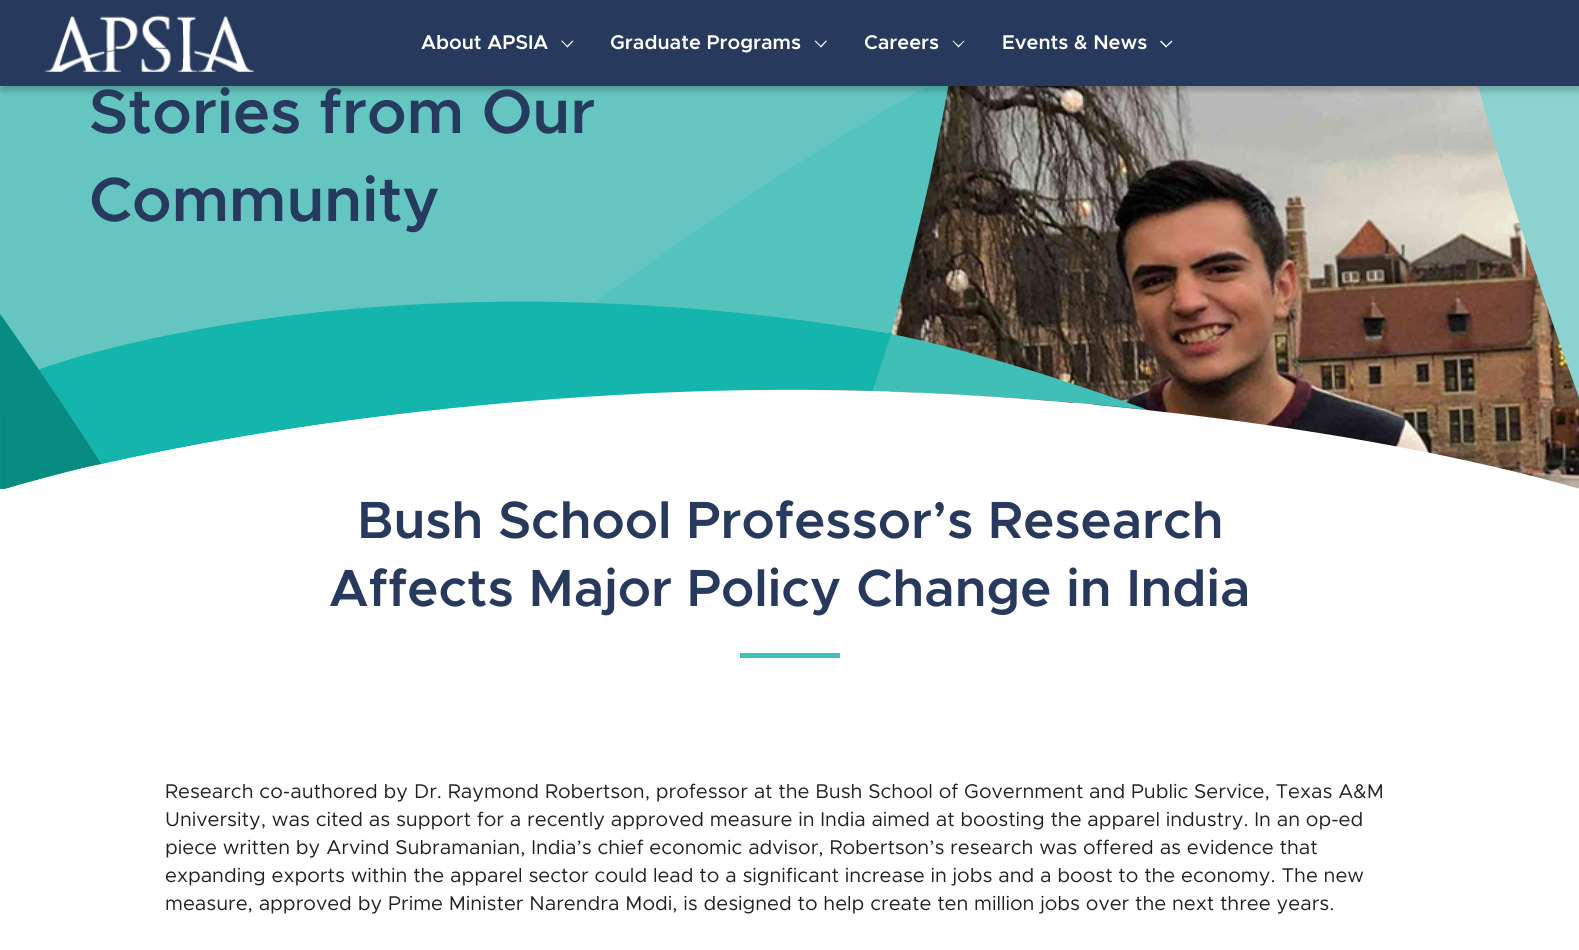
import math
import cairo

surface = cairo.ImageSurface(cairo.FORMAT_RGB24, 1579, 950)
ctx = cairo.Context(surface)
options = cairo.FontOptions()
options.set_hint_metrics(cairo.HINT_METRICS_OFF)
options.set_hint_style(cairo.HINT_STYLE_NONE)
ctx.set_font_options(options)
ctx.set_miter_limit(4)


def round_rect(x, y, w, h, r):
    ctx.new_sub_path()
    for i, (u, v) in enumerate([(x + w - r, y + h - r), (x + r, y + h - r), (x + r, y + r), (x + w - r, y + r)]):
        ctx.arc(u, v, r, i * math.pi / 2, (i + 1) * math.pi / 2)
    ctx.close_path()


def shadow(x, y, w, h, r, blur, alpha):
    ctx.push_group_with_content(cairo.CONTENT_ALPHA)
    ctx.set_operator(cairo.OPERATOR_SOURCE)
    for i in range(15, -16, -2):
        e = blur * i / 6
        if min(w, h) + 2 * e > 0:
            ctx.set_source_rgba(0, 0, 0, alpha * math.erfc((i - 1) / 8.5) / 2)
            round_rect(x - e, y - e, w + 2 * e, h + 2 * e, max(0, min(r + e + blur * .6, min(w, h) / 2 + e)))
            ctx.fill()
    ctx.mask(ctx.pop_group())


def picture(path, x, y, w, h):
    ctx.save()
    ctx.set_source_surface(cairo.ImageSurface.create_from_png(path), x, y)
    ctx.rectangle(x, y, w, h)
    ctx.fill()
    ctx.restore()


ctx.set_source_rgb(1, 1, 1)
ctx.paint()
picture("img3.png", 745, 86, 834, 403)
picture("img2.png", 0, 86, 1579, 403)
ctx.set_source_rgb(0, 0, 0)
shadow(0, -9, 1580, 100, 0, 3, 0.2)
ctx.set_source_rgb(0.153, 0.224, 0.361)
ctx.rectangle(0, 0, 1579, 86)
ctx.fill()
picture("img1.png", 45, 15, 210, 57)
ctx.select_font_face("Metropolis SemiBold")
ctx.set_font_size(20)
ctx.set_source_rgb(1, 1, 1)
ctx.move_to(421, 49)
ctx.show_text("About APSIA")
ctx.new_path()
ctx.move_to(572.5, 40.5)
ctx.line_to(573.5, 41)
ctx.line_to(567.5, 47.5)
ctx.line_to(566.5, 46.5)
ctx.close_path()
ctx.fill()
ctx.new_path()
ctx.move_to(562, 40.5)
ctx.line_to(568, 46.5)
ctx.line_to(567.5, 47.5)
ctx.line_to(561, 41)
ctx.close_path()
ctx.fill()
ctx.move_to(610, 49)
ctx.show_text("Graduate Programs")
ctx.new_path()
ctx.move_to(826, 40.5)
ctx.line_to(827, 41)
ctx.line_to(821, 47.5)
ctx.line_to(820, 46.5)
ctx.close_path()
ctx.fill()
ctx.new_path()
ctx.move_to(815.5, 40.5)
ctx.line_to(821.5, 46.5)
ctx.line_to(821, 47.5)
ctx.line_to(814.5, 41)
ctx.close_path()
ctx.fill()
ctx.move_to(864, 49)
ctx.show_text("Careers")
ctx.new_path()
ctx.move_to(964, 40.5)
ctx.line_to(964.5, 41)
ctx.line_to(958.5, 47.5)
ctx.line_to(957.5, 46.5)
ctx.close_path()
ctx.fill()
ctx.new_path()
ctx.move_to(953, 40.5)
ctx.line_to(959.5, 46.5)
ctx.line_to(958.5, 47.5)
ctx.line_to(952.5, 41)
ctx.close_path()
ctx.fill()
ctx.move_to(1002, 49)
ctx.show_text("Events & News")
ctx.new_path()
ctx.move_to(1171.5, 40.5)
ctx.line_to(1172.5, 41.5)
ctx.line_to(1166, 47.5)
ctx.line_to(1165.5, 46.5)
ctx.close_path()
ctx.fill()
ctx.new_path()
ctx.move_to(1161, 40.5)
ctx.line_to(1167, 46.5)
ctx.line_to(1166, 47.5)
ctx.line_to(1160, 41.5)
ctx.close_path()
ctx.fill()
ctx.set_font_size(62.5)
ctx.set_source_rgb(0.153, 0.224, 0.361)
ctx.move_to(89, 133)
ctx.show_text("Stories from Our")
ctx.move_to(89, 221)
ctx.show_text("Community")
ctx.set_font_size(52.5)
ctx.move_to(357, 538)
ctx.show_text("Bush School Professor’s Research")
ctx.move_to(329, 606)
ctx.show_text("Affects Major Policy Change in India")
ctx.set_source_rgb(0.231, 0.761, 0.725)
ctx.rectangle(740, 653, 100, 5)
ctx.fill()
ctx.select_font_face("Metropolis")
ctx.set_font_size(20)
ctx.set_source_rgb(0.137, 0.122, 0.125)
ctx.move_to(165, 798)
ctx.show_text("Research co-authored by Dr. Raymond Robertson, professor at the Bush School of Government and Public Service, Texas A&M")
ctx.move_to(165, 826)
ctx.show_text("University, was cited as support for a recently approved measure in India aimed at boosting the apparel industry. In an op-ed")
ctx.move_to(165, 854)
ctx.show_text("piece written by Arvind Subramanian, India’s chief economic advisor, Robertson’s research was offered as evidence that")
ctx.move_to(165, 882)
ctx.show_text("expanding exports within the apparel sector could lead to a significant increase in jobs and a boost to the economy. The new")
ctx.move_to(165, 910)
ctx.show_text("measure, approved by Prime Minister Narendra Modi, is designed to help create ten million jobs over the next three years.")
surface.write_to_png("page.png")
